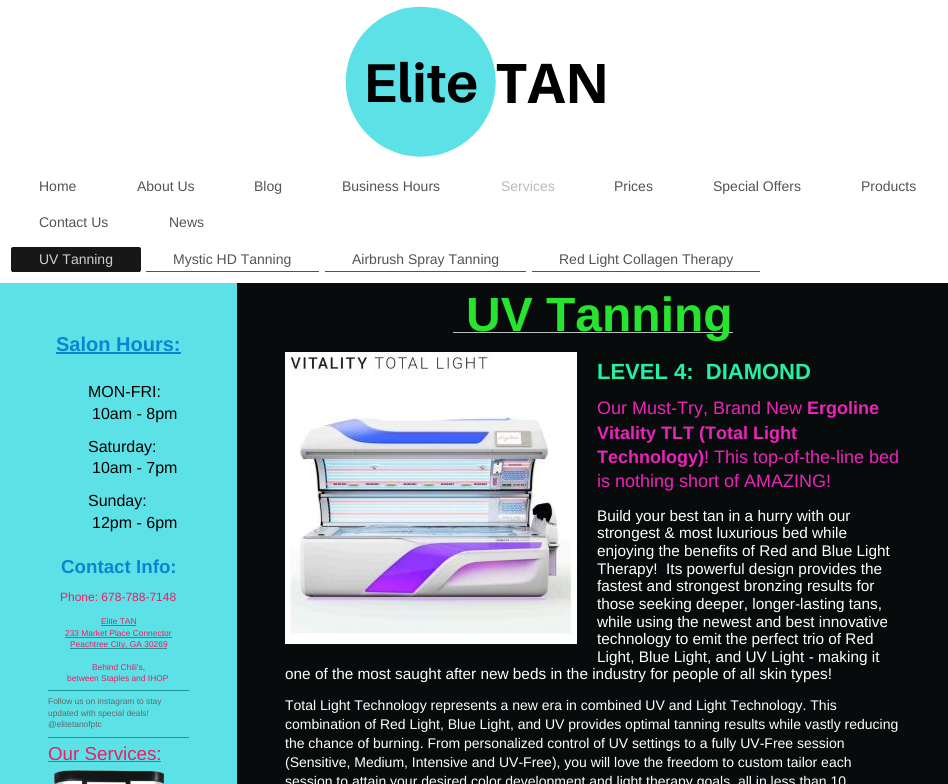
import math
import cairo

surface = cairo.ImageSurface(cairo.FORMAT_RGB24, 948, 784)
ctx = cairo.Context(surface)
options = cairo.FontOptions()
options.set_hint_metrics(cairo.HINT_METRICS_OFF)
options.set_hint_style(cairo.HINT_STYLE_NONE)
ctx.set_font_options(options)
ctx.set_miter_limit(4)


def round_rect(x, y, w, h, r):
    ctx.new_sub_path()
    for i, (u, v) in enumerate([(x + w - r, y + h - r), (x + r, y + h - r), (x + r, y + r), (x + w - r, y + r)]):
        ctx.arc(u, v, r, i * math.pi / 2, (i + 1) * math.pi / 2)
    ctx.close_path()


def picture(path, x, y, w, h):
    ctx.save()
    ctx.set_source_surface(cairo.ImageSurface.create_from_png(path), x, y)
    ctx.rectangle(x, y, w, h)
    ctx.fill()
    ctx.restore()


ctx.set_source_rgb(1, 1, 1)
ctx.paint()
picture("img1.png", 345, 6, 260, 151)
ctx.select_font_face("Liberation Sans")
ctx.set_font_size(14)
ctx.set_source_rgb(0.325, 0.325, 0.325)
ctx.move_to(39, 191)
ctx.show_text("Home")
ctx.move_to(137, 191)
ctx.show_text("About Us")
ctx.move_to(254, 191)
ctx.show_text("Blog")
ctx.move_to(342, 191)
ctx.show_text("Business Hours")
ctx.set_source_rgb(0.729, 0.729, 0.729)
ctx.move_to(501, 191)
ctx.show_text("Services")
ctx.set_source_rgb(0.325, 0.325, 0.325)
ctx.move_to(614, 191)
ctx.show_text("Prices")
ctx.move_to(713, 191)
ctx.show_text("Special Offers")
ctx.move_to(861, 191)
ctx.show_text("Products")
ctx.move_to(39, 227)
ctx.show_text("Contact Us")
ctx.move_to(169, 227)
ctx.show_text("News")
ctx.set_source_rgb(0.09, 0.09, 0.09)
round_rect(11, 247, 130, 25, 2)
ctx.fill()
ctx.rectangle(12, 271, 128, 1)
ctx.fill()
ctx.set_source_rgb(0.812, 0.812, 0.812)
ctx.move_to(39, 264)
ctx.show_text("UV Tanning")
ctx.set_source_rgb(0.325, 0.325, 0.325)
ctx.rectangle(146, 271, 173, 1)
ctx.fill()
ctx.move_to(173, 264)
ctx.show_text("Mystic HD Tanning")
ctx.rectangle(325, 271, 201, 1)
ctx.fill()
ctx.move_to(352, 264)
ctx.show_text("Airbrush Spray Tanning")
ctx.rectangle(532, 271, 228, 1)
ctx.fill()
ctx.move_to(559, 264)
ctx.show_text("Red Light Collagen Therapy")
ctx.set_source_rgb(0.361, 0.882, 0.902)
ctx.rectangle(0, 283, 237, 501)
ctx.fill()
ctx.select_font_face("Liberation Sans", cairo.FONT_SLANT_NORMAL, cairo.FONT_WEIGHT_BOLD)
ctx.set_font_size(20)
ctx.set_source_rgb(0.024, 0.533, 0.82)
ctx.move_to(56, 351)
ctx.show_text("Salon Hours:")
ctx.rectangle(56, 352, 125, 2)
ctx.fill()
ctx.select_font_face("Liberation Sans")
ctx.set_font_size(16)
ctx.set_source_rgb(0, 0, 0)
ctx.move_to(88, 397)
ctx.show_text("MON-FRI:")
ctx.move_to(92, 419)
ctx.show_text("10am - 8pm")
ctx.move_to(88, 452)
ctx.show_text("Saturday:")
ctx.move_to(92, 473)
ctx.show_text("10am - 7pm")
ctx.move_to(88, 506)
ctx.show_text("Sunday:")
ctx.move_to(92, 528)
ctx.show_text("12pm - 6pm")
ctx.select_font_face("Liberation Sans", cairo.FONT_SLANT_NORMAL, cairo.FONT_WEIGHT_BOLD)
ctx.set_font_size(18.75)
ctx.set_source_rgb(0.024, 0.533, 0.82)
ctx.move_to(61, 573)
ctx.show_text("Contact Info:")
ctx.select_font_face("Liberation Sans")
ctx.set_font_size(12)
ctx.set_source_rgb(0.914, 0.118, 0.388)
ctx.move_to(60, 601)
ctx.show_text("Phone: 678-788-7148")
ctx.set_font_size(8.4)
ctx.move_to(101, 624)
ctx.show_text("Elite TAN")
ctx.set_source_rgb(0.114, 0.588, 0.608)
ctx.rectangle(101, 625, 35, 1)
ctx.fill()
ctx.set_source_rgb(0.914, 0.118, 0.388)
ctx.move_to(65, 636)
ctx.show_text("233 Market Place Connector")
ctx.set_source_rgb(0.114, 0.588, 0.608)
ctx.rectangle(65, 637, 107, 1)
ctx.fill()
ctx.rectangle(70, 648, 97, 1)
ctx.fill()
ctx.set_source_rgb(0.914, 0.118, 0.388)
ctx.move_to(70, 647)
ctx.show_text("Peachtree City, GA 30269")
ctx.move_to(92, 670)
ctx.show_text("Behind Chili's,")
ctx.move_to(67, 681)
ctx.show_text("between Staples and IHOP")
ctx.set_source_rgb(0.114, 0.588, 0.608)
ctx.rectangle(48, 690, 141, 1)
ctx.fill()
ctx.set_source_rgb(0.4, 0.4, 0.4)
ctx.move_to(48, 704)
ctx.show_text("Follow us on instagram to stay")
ctx.move_to(48, 716)
ctx.show_text("updated with special deals!")
ctx.move_to(48, 727)
ctx.show_text("@elitetanofptc")
ctx.set_source_rgb(0.114, 0.588, 0.608)
ctx.rectangle(48, 737, 141, 1)
ctx.fill()
ctx.set_font_size(18.75)
ctx.set_source_rgb(0.914, 0.118, 0.388)
ctx.move_to(48, 760)
ctx.show_text("Our Services:")
ctx.set_source_rgb(0.114, 0.588, 0.608)
ctx.rectangle(48, 761, 113, 1)
ctx.fill()
picture("img2.png", 54, 770, 111, 14)
ctx.set_source_rgb(0.035, 0.043, 0.043)
ctx.rectangle(237, 283, 711, 501)
ctx.fill()
ctx.set_source_rgb(0.718, 0.757, 0.757)
ctx.rectangle(453, 332, 280, 1)
ctx.fill()
ctx.select_font_face("Liberation Sans", cairo.FONT_SLANT_NORMAL, cairo.FONT_WEIGHT_BOLD)
ctx.set_font_size(48)
ctx.set_source_rgb(0.157, 0.89, 0.184)
ctx.move_to(466, 331)
ctx.show_text("UV Tanning")
picture("img3.png", 285, 352, 292, 292)
ctx.set_font_size(22)
ctx.set_source_rgb(0.137, 0.945, 0.643)
ctx.move_to(597, 379)
ctx.show_text("LEVEL 4:  DIAMOND")
ctx.select_font_face("Liberation Sans")
ctx.set_font_size(18)
ctx.set_source_rgb(0.922, 0.137, 0.722)
ctx.move_to(597, 414)
ctx.show_text("Our Must-Try, Brand New")
ctx.select_font_face("Liberation Sans", cairo.FONT_SLANT_NORMAL, cairo.FONT_WEIGHT_BOLD)
ctx.move_to(807, 414)
ctx.show_text("Ergoline")
ctx.move_to(597, 439)
ctx.show_text("Vitality TLT (Total Light")
ctx.move_to(597, 463)
ctx.show_text("Technology)")
ctx.select_font_face("Liberation Sans")
ctx.move_to(704, 463)
ctx.show_text("! This top-of-the-line bed")
ctx.move_to(597, 487)
ctx.show_text("is nothing short of AMAZING!")
ctx.set_font_size(15.35)
ctx.set_source_rgb(1, 1, 1)
ctx.move_to(597, 521)
ctx.show_text("Build your best tan in a hurry with our")
ctx.move_to(597, 538)
ctx.show_text("strongest & most luxurious bed while")
ctx.move_to(597, 556)
ctx.show_text("enjoying the benefits of Red and Blue Light")
ctx.move_to(597, 574)
ctx.show_text("Therapy!  Its powerful design provides the")
ctx.move_to(597, 591)
ctx.show_text("fastest and strongest bronzing results for")
ctx.move_to(597, 609)
ctx.show_text("those seeking deeper, longer-lasting tans,")
ctx.move_to(597, 627)
ctx.show_text("while using the newest and best innovative")
ctx.move_to(597, 644)
ctx.show_text("technology to emit the perfect trio of Red")
ctx.move_to(597, 662)
ctx.show_text("Light, Blue Light, and UV Light - making it")
ctx.move_to(285, 679)
ctx.show_text("one of the most saught after new beds in the industry for people of all skin types!")
ctx.set_font_size(14)
ctx.move_to(285, 710)
ctx.show_text("Total Light Technology represents a new era in combined UV and Light Technology. This")
ctx.move_to(285, 729)
ctx.show_text("combination of Red Light, Blue Light, and UV provides optimal tanning results while vastly reducing")
ctx.move_to(285, 748)
ctx.show_text("the chance of burning. From personalized control of UV settings to a fully UV-Free session")
ctx.move_to(285, 767)
ctx.show_text("(Sensitive, Medium, Intensive and UV-Free), you will love the freedom to custom tailor each")
ctx.move_to(285, 786)
ctx.show_text("session to attain your desired color development and light therapy goals, all in less than 10")
surface.write_to_png("page.png")
